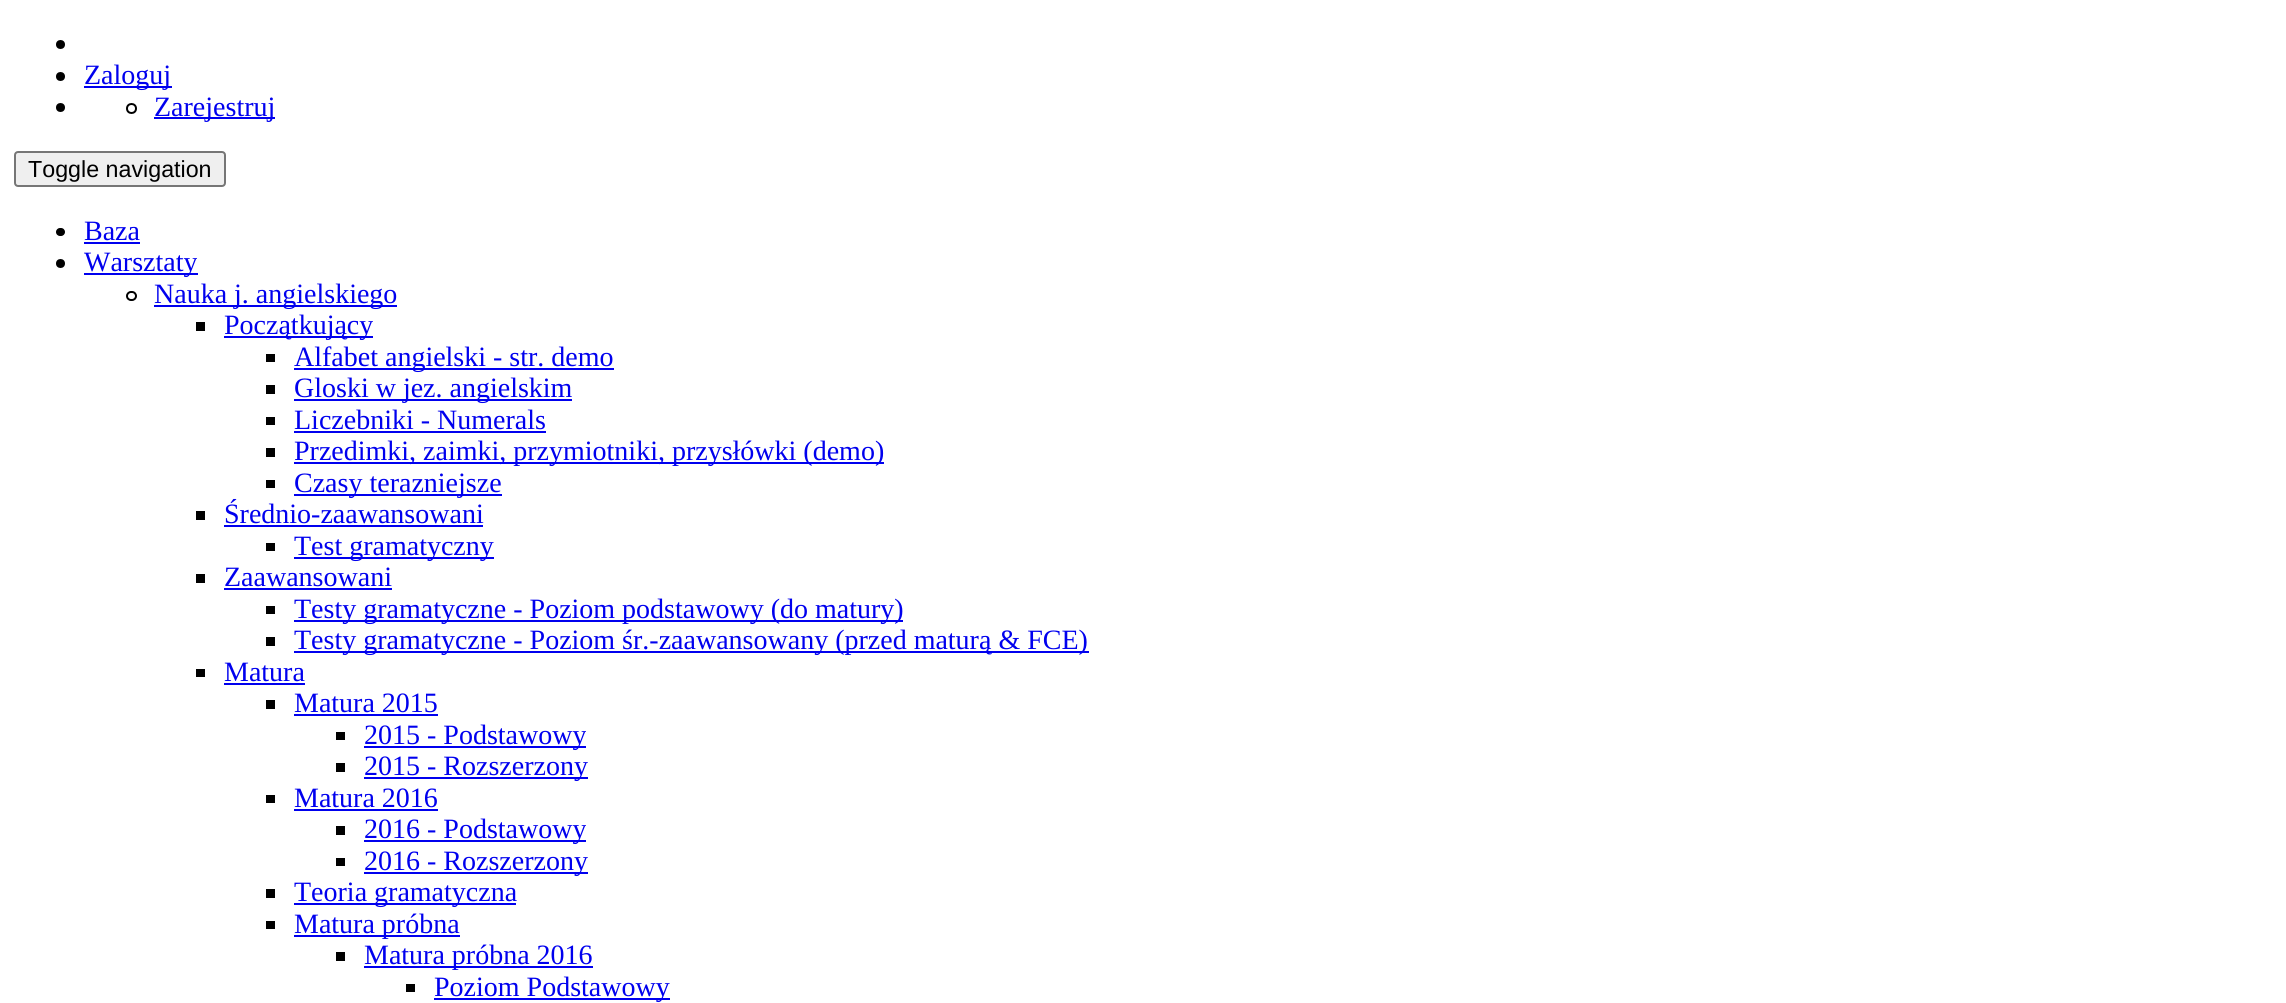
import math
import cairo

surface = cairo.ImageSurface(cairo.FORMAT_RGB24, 2286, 1003)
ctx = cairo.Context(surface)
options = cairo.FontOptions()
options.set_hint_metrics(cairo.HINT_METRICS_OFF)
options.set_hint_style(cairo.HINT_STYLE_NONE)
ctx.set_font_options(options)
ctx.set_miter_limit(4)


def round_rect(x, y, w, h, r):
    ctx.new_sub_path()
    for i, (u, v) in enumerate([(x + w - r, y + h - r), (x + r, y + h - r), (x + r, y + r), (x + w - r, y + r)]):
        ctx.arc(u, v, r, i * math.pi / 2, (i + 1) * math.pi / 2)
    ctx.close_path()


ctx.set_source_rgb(1, 1, 1)
ctx.paint()
ctx.set_source_rgb(0, 0, 0)
ctx.arc(60.5, 44.5, 4.5, 0, 2 * math.pi)
ctx.fill()
ctx.arc(60.5, 76.5, 4.5, 0, 2 * math.pi)
ctx.fill()
ctx.set_source_rgb(0, 0, 0.933)
ctx.rectangle(84, 86, 88, 2)
ctx.fill()
ctx.select_font_face("Liberation Serif")
ctx.set_font_size(28)
ctx.move_to(84, 84)
ctx.show_text("Zaloguj")
ctx.set_source_rgb(0, 0, 0)
ctx.new_path()
ctx.arc(60.5, 107.5, 4.5, 0, 2 * math.pi)
ctx.fill()
ctx.arc(131.5, 108.5, 4.5, 0, 2 * math.pi)
ctx.stroke()
ctx.set_source_rgb(0, 0, 0.933)
ctx.rectangle(154, 117, 121, 2)
ctx.fill()
ctx.move_to(154, 116)
ctx.show_text("Zarejestruj")
ctx.set_source_rgb(0.937, 0.937, 0.937)
round_rect(15, 152, 210, 34, 3)
ctx.fill_preserve()
ctx.set_source_rgb(0.463, 0.463, 0.463)
ctx.stroke()
ctx.select_font_face("Liberation Sans")
ctx.set_font_size(23.25)
ctx.set_source_rgb(0, 0, 0)
ctx.move_to(28, 177)
ctx.show_text("Toggle navigation")
round_rect(56, 228, 9, 8, 4)
ctx.fill()
ctx.select_font_face("Liberation Serif")
ctx.set_font_size(28)
ctx.set_source_rgb(0, 0, 0.933)
ctx.move_to(84, 240)
ctx.show_text("Baza")
ctx.rectangle(84, 242, 56, 2)
ctx.fill()
ctx.set_source_rgb(0, 0, 0)
ctx.arc(60.5, 263.5, 4.5, 0, 2 * math.pi)
ctx.fill()
ctx.set_source_rgb(0, 0, 0.933)
ctx.rectangle(84, 273, 114, 2)
ctx.fill()
ctx.move_to(84, 271)
ctx.show_text("Warsztaty")
round_rect(127, 292, 9, 8, 4)
ctx.set_source_rgb(0, 0, 0)
ctx.stroke()
ctx.set_source_rgb(0, 0, 0.933)
ctx.rectangle(154, 305, 243, 2)
ctx.fill()
ctx.move_to(154, 303)
ctx.show_text("Nauka j. angielskiego")
ctx.set_source_rgb(0, 0, 0)
ctx.rectangle(196, 322, 9, 9)
ctx.fill()
ctx.set_source_rgb(0, 0, 0.933)
ctx.rectangle(224, 336, 149, 2)
ctx.fill()
ctx.move_to(224, 334)
ctx.show_text("Początkujący")
ctx.set_source_rgb(0, 0, 0)
ctx.rectangle(266, 354, 9, 8)
ctx.fill()
ctx.set_source_rgb(0, 0, 0.933)
ctx.rectangle(294, 368, 320, 2)
ctx.fill()
ctx.move_to(294, 366)
ctx.show_text("Alfabet angielski - str. demo")
ctx.set_source_rgb(0, 0, 0)
ctx.rectangle(266, 385, 9, 9)
ctx.fill()
ctx.set_source_rgb(0, 0, 0.933)
ctx.rectangle(294, 399, 278, 2)
ctx.fill()
ctx.move_to(294, 397)
ctx.show_text("Gloski w jez. angielskim")
ctx.set_source_rgb(0, 0, 0)
ctx.rectangle(266, 417, 9, 8)
ctx.fill()
ctx.set_source_rgb(0, 0, 0.933)
ctx.move_to(294, 429)
ctx.show_text("Liczebniki - Numerals")
ctx.rectangle(294, 431, 252, 2)
ctx.fill()
ctx.set_source_rgb(0, 0, 0)
ctx.rectangle(266, 448, 9, 9)
ctx.fill()
ctx.set_source_rgb(0, 0, 0.933)
ctx.rectangle(294, 462, 590, 2)
ctx.fill()
ctx.move_to(294, 460)
ctx.show_text("Przedimki, zaimki, przymiotniki, przysłówki (demo)")
ctx.set_source_rgb(0, 0, 0)
ctx.rectangle(266, 480, 9, 8)
ctx.fill()
ctx.set_source_rgb(0, 0, 0.933)
ctx.rectangle(294, 494, 208, 2)
ctx.fill()
ctx.move_to(294, 492)
ctx.show_text("Czasy terazniejsze")
ctx.set_source_rgb(0, 0, 0)
ctx.rectangle(196, 511, 9, 9)
ctx.fill()
ctx.set_source_rgb(0, 0, 0.933)
ctx.move_to(224, 523)
ctx.show_text("Średnio-zaawansowani")
ctx.rectangle(224, 525, 259, 2)
ctx.fill()
ctx.set_source_rgb(0, 0, 0)
ctx.rectangle(266, 543, 9, 8)
ctx.fill()
ctx.set_source_rgb(0, 0, 0.933)
ctx.rectangle(294, 557, 200, 2)
ctx.fill()
ctx.move_to(294, 555)
ctx.show_text("Test gramatyczny")
ctx.set_source_rgb(0, 0, 0)
ctx.rectangle(196, 574, 9, 9)
ctx.fill()
ctx.set_source_rgb(0, 0, 0.933)
ctx.move_to(224, 586)
ctx.show_text("Zaawansowani")
ctx.rectangle(224, 588, 168, 2)
ctx.fill()
ctx.set_source_rgb(0, 0, 0)
ctx.rectangle(266, 606, 9, 8)
ctx.fill()
ctx.set_source_rgb(0, 0, 0.933)
ctx.rectangle(294, 620, 609, 2)
ctx.fill()
ctx.move_to(294, 618)
ctx.show_text("Testy gramatyczne - Poziom podstawowy (do matury)")
ctx.set_source_rgb(0, 0, 0)
ctx.rectangle(266, 637, 9, 9)
ctx.fill()
ctx.set_source_rgb(0, 0, 0.933)
ctx.rectangle(294, 651, 795, 2)
ctx.fill()
ctx.move_to(294, 649)
ctx.show_text("Testy gramatyczne - Poziom śr.-zaawansowany (przed maturą & FCE)")
ctx.set_source_rgb(0, 0, 0)
ctx.rectangle(196, 669, 9, 8)
ctx.fill()
ctx.set_source_rgb(0, 0, 0.933)
ctx.move_to(224, 681)
ctx.show_text("Matura")
ctx.rectangle(224, 683, 81, 2)
ctx.fill()
ctx.set_source_rgb(0, 0, 0)
ctx.rectangle(266, 700, 9, 9)
ctx.fill()
ctx.set_source_rgb(0, 0, 0.933)
ctx.move_to(294, 712)
ctx.show_text("Matura 2015")
ctx.rectangle(294, 714, 144, 2)
ctx.fill()
ctx.set_source_rgb(0, 0, 0)
ctx.rectangle(336, 732, 9, 8)
ctx.fill()
ctx.set_source_rgb(0, 0, 0.933)
ctx.rectangle(364, 746, 222, 2)
ctx.fill()
ctx.move_to(364, 744)
ctx.show_text("2015 - Podstawowy")
ctx.set_source_rgb(0, 0, 0)
ctx.rectangle(336, 763, 9, 9)
ctx.fill()
ctx.set_source_rgb(0, 0, 0.933)
ctx.rectangle(364, 777, 224, 2)
ctx.fill()
ctx.move_to(364, 775)
ctx.show_text("2015 - Rozszerzony")
ctx.set_source_rgb(0, 0, 0)
ctx.rectangle(266, 795, 9, 8)
ctx.fill()
ctx.set_source_rgb(0, 0, 0.933)
ctx.move_to(294, 807)
ctx.show_text("Matura 2016")
ctx.rectangle(294, 809, 144, 2)
ctx.fill()
ctx.set_source_rgb(0, 0, 0)
ctx.rectangle(336, 826, 9, 9)
ctx.fill()
ctx.set_source_rgb(0, 0, 0.933)
ctx.rectangle(364, 840, 222, 2)
ctx.fill()
ctx.move_to(364, 838)
ctx.show_text("2016 - Podstawowy")
ctx.set_source_rgb(0, 0, 0)
ctx.rectangle(336, 858, 9, 8)
ctx.fill()
ctx.set_source_rgb(0, 0, 0.933)
ctx.rectangle(364, 872, 224, 2)
ctx.fill()
ctx.move_to(364, 870)
ctx.show_text("2016 - Rozszerzony")
ctx.set_source_rgb(0, 0, 0)
ctx.rectangle(266, 889, 9, 9)
ctx.fill()
ctx.set_source_rgb(0, 0, 0.933)
ctx.rectangle(294, 903, 222, 2)
ctx.fill()
ctx.move_to(294, 901)
ctx.show_text("Teoria gramatyczna")
ctx.set_source_rgb(0, 0, 0)
ctx.rectangle(266, 921, 9, 8)
ctx.fill()
ctx.set_source_rgb(0, 0, 0.933)
ctx.rectangle(294, 935, 166, 2)
ctx.fill()
ctx.move_to(294, 933)
ctx.show_text("Matura próbna")
ctx.set_source_rgb(0, 0, 0)
ctx.rectangle(336, 952, 9, 9)
ctx.fill()
ctx.set_source_rgb(0, 0, 0.933)
ctx.rectangle(364, 966, 229, 2)
ctx.fill()
ctx.move_to(364, 964)
ctx.show_text("Matura próbna 2016")
ctx.set_source_rgb(0, 0, 0)
ctx.rectangle(406, 984, 9, 8)
ctx.fill()
ctx.set_source_rgb(0, 0, 0.933)
ctx.rectangle(434, 998, 236, 2)
ctx.fill()
ctx.move_to(434, 996)
ctx.show_text("Poziom Podstawowy")
surface.write_to_png("page.png")
